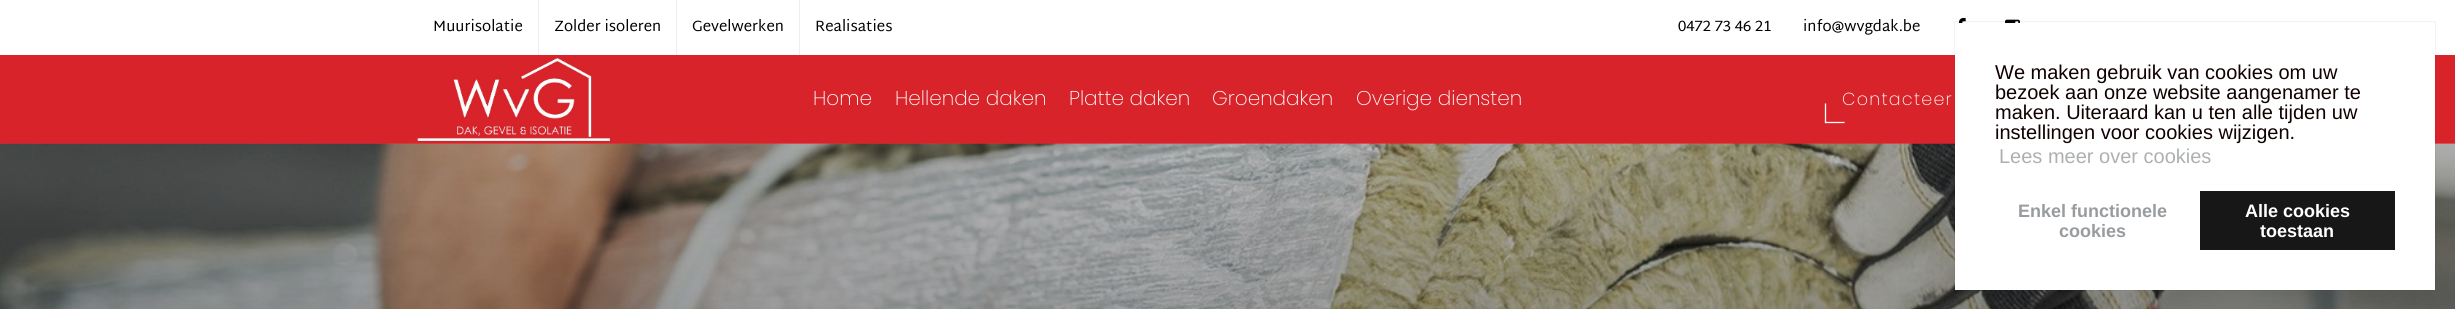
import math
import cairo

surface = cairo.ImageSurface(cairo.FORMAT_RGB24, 2455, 309)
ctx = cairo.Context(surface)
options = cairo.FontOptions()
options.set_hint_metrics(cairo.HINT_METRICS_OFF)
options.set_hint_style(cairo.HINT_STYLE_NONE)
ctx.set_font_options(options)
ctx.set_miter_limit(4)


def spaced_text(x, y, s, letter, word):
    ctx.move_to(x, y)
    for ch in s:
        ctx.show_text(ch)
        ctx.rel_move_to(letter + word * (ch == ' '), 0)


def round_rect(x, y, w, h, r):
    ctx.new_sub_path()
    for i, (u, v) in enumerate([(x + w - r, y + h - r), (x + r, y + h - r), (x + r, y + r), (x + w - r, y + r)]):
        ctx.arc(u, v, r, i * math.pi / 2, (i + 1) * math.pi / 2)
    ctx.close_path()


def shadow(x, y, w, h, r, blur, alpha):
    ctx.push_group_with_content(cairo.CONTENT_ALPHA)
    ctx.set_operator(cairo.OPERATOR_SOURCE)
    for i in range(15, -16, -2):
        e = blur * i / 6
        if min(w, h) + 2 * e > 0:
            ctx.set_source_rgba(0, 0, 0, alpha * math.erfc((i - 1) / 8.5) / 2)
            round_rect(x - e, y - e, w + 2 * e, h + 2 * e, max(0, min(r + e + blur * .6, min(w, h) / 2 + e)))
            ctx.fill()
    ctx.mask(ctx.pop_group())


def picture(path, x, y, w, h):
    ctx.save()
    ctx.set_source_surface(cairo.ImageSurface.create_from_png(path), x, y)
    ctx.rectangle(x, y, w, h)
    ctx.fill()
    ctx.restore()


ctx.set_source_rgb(0.847, 0.137, 0.165)
ctx.paint()
ctx.set_source_rgb(1, 1, 1)
ctx.rectangle(0, 0, 2455, 55)
ctx.fill()
ctx.select_font_face("Martel Sans")
ctx.set_font_size(15)
ctx.set_source_rgb(0, 0, 0)
ctx.move_to(433, 31)
ctx.show_text("Muurisolatie")
ctx.set_source_rgb(0.933, 0.933, 0.933)
ctx.rectangle(538, 0, 1, 55)
ctx.fill()
ctx.set_source_rgb(0, 0, 0)
ctx.move_to(554, 31)
ctx.show_text("Zolder isoleren")
ctx.set_source_rgb(0.933, 0.933, 0.933)
ctx.rectangle(676, 0, 1, 55)
ctx.fill()
ctx.set_source_rgb(0, 0, 0)
ctx.move_to(692, 31)
ctx.show_text("Gevelwerken")
ctx.set_source_rgb(0.933, 0.933, 0.933)
ctx.rectangle(799, 0, 1, 55)
ctx.fill()
ctx.set_source_rgb(0, 0, 0)
ctx.move_to(815, 31)
ctx.show_text("Realisaties")
ctx.move_to(1678, 31)
ctx.show_text("0472 73 46 21")
ctx.move_to(1803, 31)
ctx.show_text("info@wvgdak.be")
picture("img1.png", 1958, 18, 8, 5)
picture("img2.png", 2005, 19, 15, 4)
ctx.set_source_rgb(0, 0, 0)
shadow(0, 144, 2455, 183, 0, 6, 0.1)
ctx.set_source_rgb(0.847, 0.137, 0.165)
ctx.rectangle(0, 137, 2455, 6)
ctx.fill()
picture("img3.png", 417, 57, 194, 85)
ctx.select_font_face("Poppins ExtraLight")
ctx.set_font_size(20)
ctx.set_source_rgb(1, 1, 1)
ctx.move_to(813, 105)
ctx.show_text("Home")
ctx.move_to(895, 105)
ctx.show_text("Hellende daken")
ctx.move_to(1069, 105)
ctx.show_text("Platte daken")
ctx.move_to(1212, 105)
ctx.show_text("Groendaken")
ctx.move_to(1356, 105)
ctx.show_text("Overige diensten")
ctx.new_path()
ctx.move_to(1844.5, 122.5)
ctx.line_to(1825.5, 122.5)
ctx.line_to(1825.5, 103.5)
ctx.set_line_width(1.3)
ctx.stroke()
ctx.set_font_size(17.5)
spaced_text(1842, 105, "Contacteer", 1.25, 0)
picture("img4.png", 0, 143, 2455, 166)
ctx.rectangle(1954.5, 21.5, 481, 269)
ctx.set_source_rgba(0, 0, 0, 0.05)
ctx.set_line_width(1)
ctx.stroke()
ctx.set_source_rgb(1, 1, 1)
ctx.rectangle(1955, 55, 480, 235)
ctx.fill()
ctx.select_font_face("Liberation Sans")
ctx.set_font_size(20)
ctx.set_source_rgb(0.067, 0, 0)
ctx.move_to(1995, 79)
ctx.show_text("We maken gebruik van cookies om uw")
ctx.move_to(1995, 99)
ctx.show_text("bezoek aan onze website aangenamer te")
ctx.move_to(1995, 119)
ctx.show_text("maken. Uiteraard kan u ten alle tijden uw")
ctx.move_to(1995, 139)
ctx.show_text("instellingen voor cookies wijzigen.")
ctx.set_source_rgb(0.678, 0.69, 0.698)
ctx.move_to(1999, 163)
ctx.show_text("Lees meer over cookies")
ctx.select_font_face("Liberation Sans", cairo.FONT_SLANT_NORMAL, cairo.FONT_WEIGHT_BOLD)
ctx.set_font_size(18)
ctx.set_source_rgb(0.6, 0.612, 0.624)
ctx.move_to(2018, 217)
ctx.show_text("Enkel functionele")
ctx.move_to(2059, 237)
ctx.show_text("cookies")
ctx.set_source_rgb(0.094, 0.09, 0.09)
ctx.rectangle(2200, 191, 195, 59)
ctx.fill()
ctx.set_source_rgb(1, 1, 1)
ctx.move_to(2245, 217)
ctx.show_text("Alle cookies")
ctx.move_to(2260, 237)
ctx.show_text("toestaan")
surface.write_to_png("page.png")
